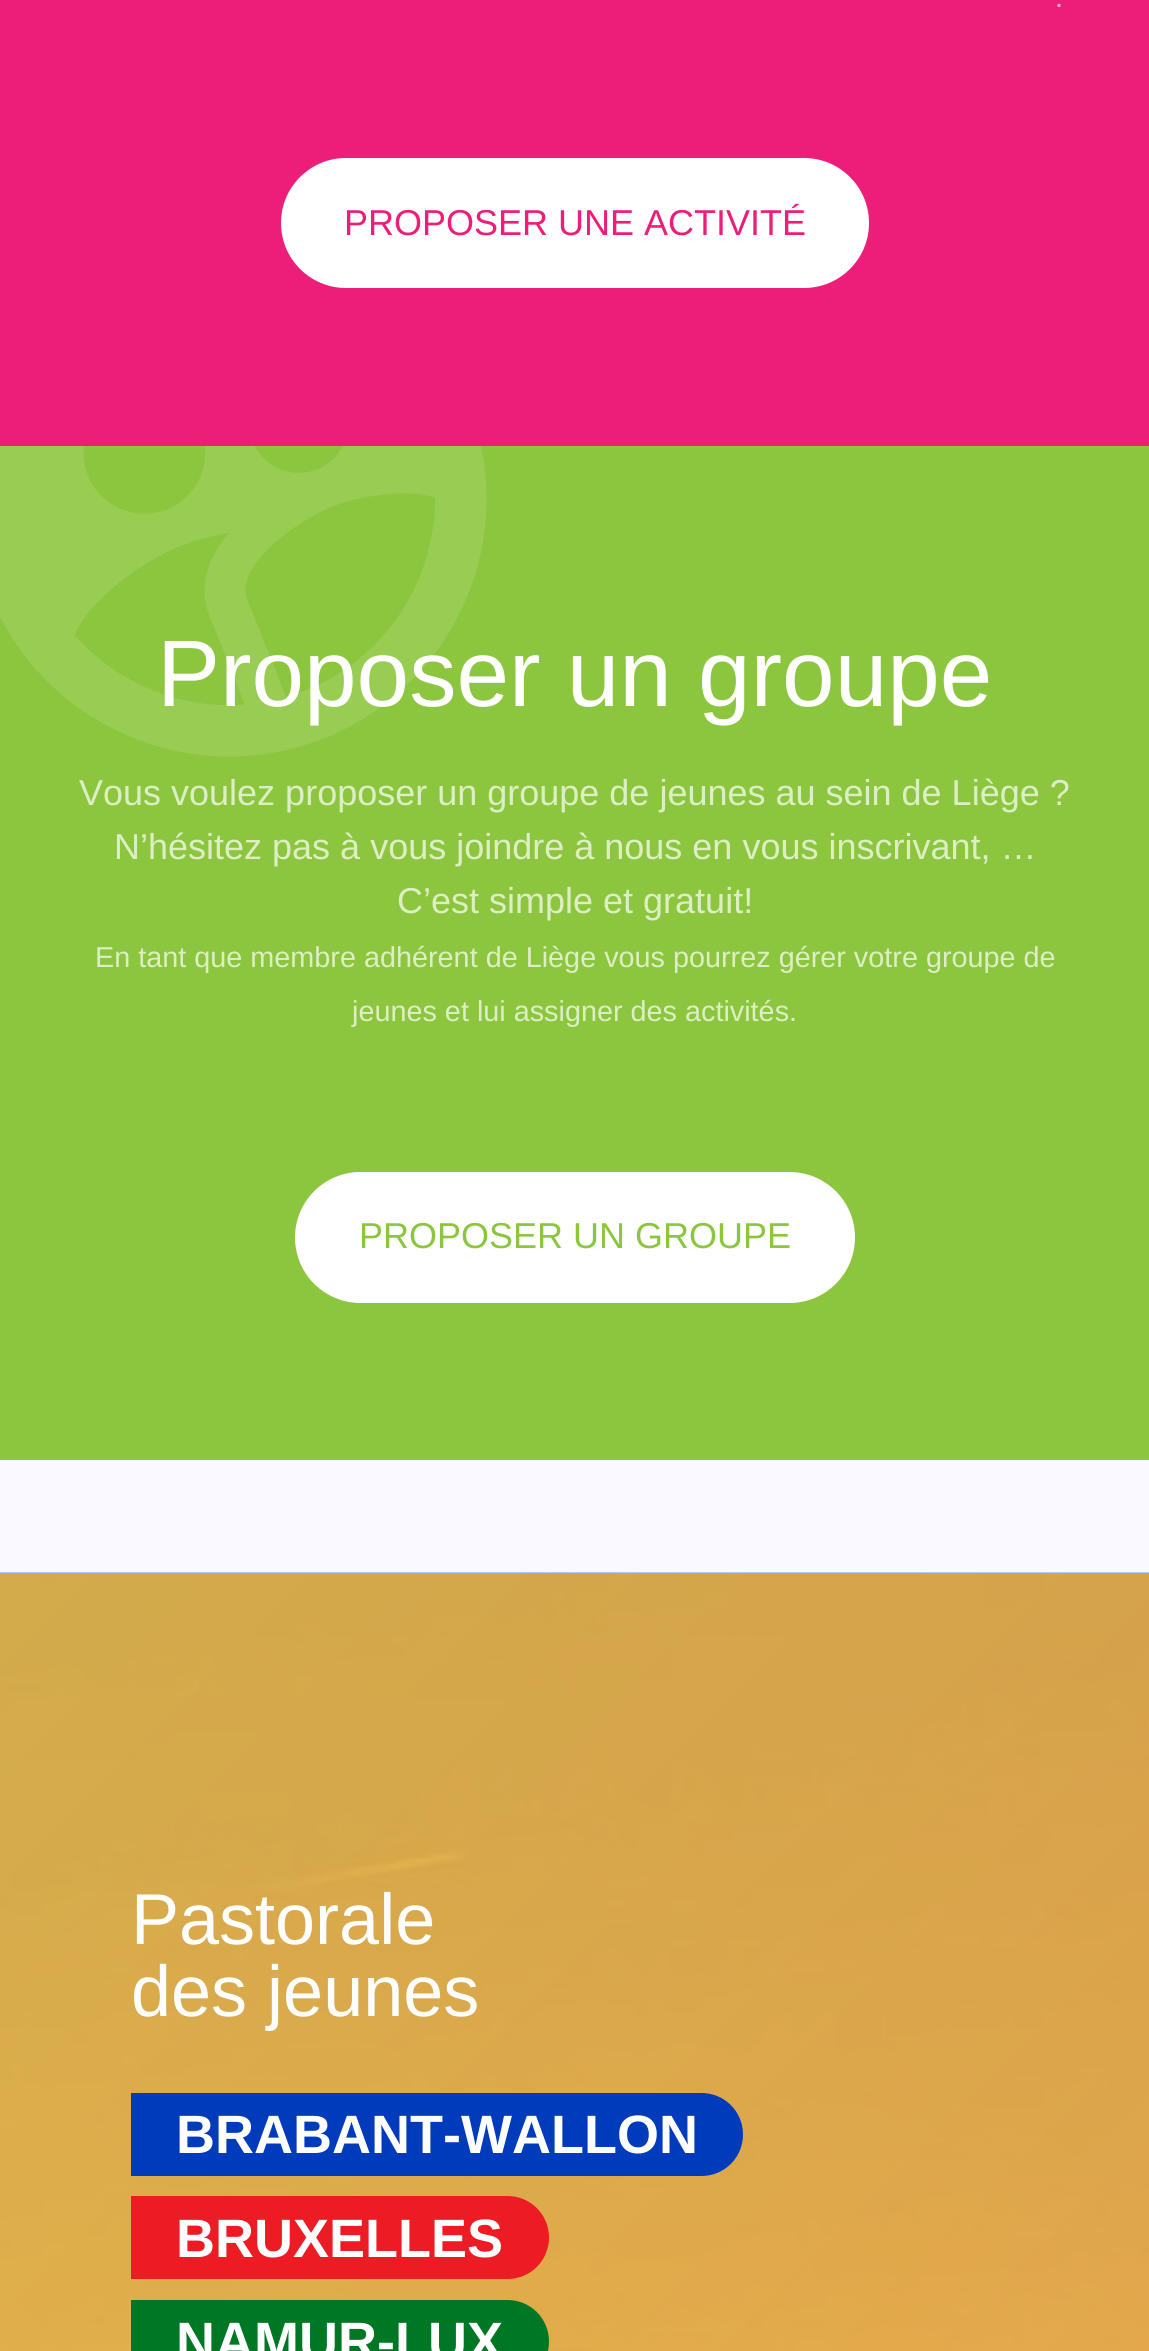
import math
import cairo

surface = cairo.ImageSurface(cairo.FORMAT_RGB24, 1149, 2351)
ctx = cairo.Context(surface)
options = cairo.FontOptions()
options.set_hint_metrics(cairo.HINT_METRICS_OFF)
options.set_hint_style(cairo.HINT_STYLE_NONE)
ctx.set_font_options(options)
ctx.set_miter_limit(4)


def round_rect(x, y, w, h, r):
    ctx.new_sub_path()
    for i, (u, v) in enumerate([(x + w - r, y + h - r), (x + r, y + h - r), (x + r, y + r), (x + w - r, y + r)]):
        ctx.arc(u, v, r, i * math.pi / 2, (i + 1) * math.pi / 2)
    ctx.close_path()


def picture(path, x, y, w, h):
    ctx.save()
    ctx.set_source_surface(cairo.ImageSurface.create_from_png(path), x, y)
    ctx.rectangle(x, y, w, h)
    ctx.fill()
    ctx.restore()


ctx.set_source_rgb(0.973, 0.976, 1)
ctx.paint()
ctx.set_source_rgb(0.929, 0.118, 0.475)
ctx.rectangle(0, 0, 1149, 446)
ctx.fill()
ctx.select_font_face("Liberation Sans")
ctx.set_font_size(28.8)
ctx.set_source_rgb(0.98, 0.737, 0.843)
ctx.move_to(1055, 7)
ctx.show_text(".")
ctx.set_source_rgb(1, 1, 1)
round_rect(281, 158, 588, 130, 65)
ctx.fill()
ctx.set_font_size(36)
ctx.set_source_rgb(0.929, 0.118, 0.475)
ctx.move_to(344, 235)
ctx.show_text("PROPOSER UNE ACTIVITÉ")
ctx.set_source_rgb(0.549, 0.776, 0.247)
ctx.rectangle(0, 446, 1149, 1014)
ctx.fill()
picture("img1.png", 0, 446, 487, 311)
ctx.set_font_size(94.5)
ctx.set_source_rgb(1, 1, 1)
ctx.move_to(157, 706)
ctx.show_text("Proposer un groupe")
ctx.set_font_size(36)
ctx.set_source_rgb(0.867, 0.933, 0.773)
ctx.move_to(79, 805)
ctx.show_text("Vous voulez proposer un groupe de jeunes au sein de Liège ?")
ctx.move_to(114, 859)
ctx.show_text("N’hésitez pas à vous joindre à nous en vous inscrivant, …")
ctx.move_to(397, 913)
ctx.show_text("C’est simple et gratuit!")
ctx.set_font_size(28.8)
ctx.move_to(95, 967)
ctx.show_text("En tant que membre adhérent de Liège vous pourrez gérer votre groupe de")
ctx.move_to(352, 1021)
ctx.show_text("jeunes et lui assigner des activités.")
ctx.set_source_rgb(1, 1, 1)
round_rect(295, 1172, 560, 131, 65.5)
ctx.fill()
ctx.set_font_size(36)
ctx.set_source_rgb(0.549, 0.776, 0.247)
ctx.move_to(359, 1248)
ctx.show_text("PROPOSER UN GROUPE")
picture("img2.png", 0, 1572, 1149, 779)
ctx.set_font_size(72)
ctx.set_source_rgb(1, 1, 1)
ctx.move_to(131, 1944)
ctx.show_text("Pastorale")
ctx.move_to(131, 2016)
ctx.show_text("des jeunes")
ctx.set_source_rgb(0, 0.231, 0.737)
ctx.new_path()
ctx.move_to(131, 2093)
ctx.line_to(701.5, 2093)
ctx.curve_to(724.5, 2093, 743, 2111.5, 743, 2134.5)
ctx.curve_to(743, 2157.5, 724.5, 2176, 701.5, 2176)
ctx.line_to(131, 2176)
ctx.close_path()
ctx.fill()
ctx.select_font_face("Liberation Sans", cairo.FONT_SLANT_NORMAL, cairo.FONT_WEIGHT_BOLD)
ctx.set_font_size(54)
ctx.set_source_rgb(1, 1, 1)
ctx.move_to(176, 2153)
ctx.show_text("BRABANT-WALLON")
ctx.set_source_rgb(0.929, 0.11, 0.141)
ctx.new_path()
ctx.move_to(131, 2196)
ctx.line_to(507.5, 2196)
ctx.curve_to(530.5, 2196, 549, 2214.5, 549, 2237.5)
ctx.curve_to(549, 2260.5, 530.5, 2279, 507.5, 2279)
ctx.line_to(131, 2279)
ctx.close_path()
ctx.fill()
ctx.set_source_rgb(1, 1, 1)
ctx.move_to(176, 2257)
ctx.show_text("BRUXELLES")
ctx.set_source_rgb(0, 0.467, 0.145)
ctx.new_path()
ctx.move_to(131, 2300)
ctx.line_to(507.5, 2300)
ctx.curve_to(530.5, 2300, 549, 2318.5, 549, 2341.5)
ctx.curve_to(549, 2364.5, 530.5, 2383, 507.5, 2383)
ctx.line_to(131, 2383)
ctx.close_path()
ctx.fill()
ctx.set_source_rgb(1, 1, 1)
ctx.move_to(176, 2360)
ctx.show_text("NAMUR-LUX")
surface.write_to_png("page.png")
